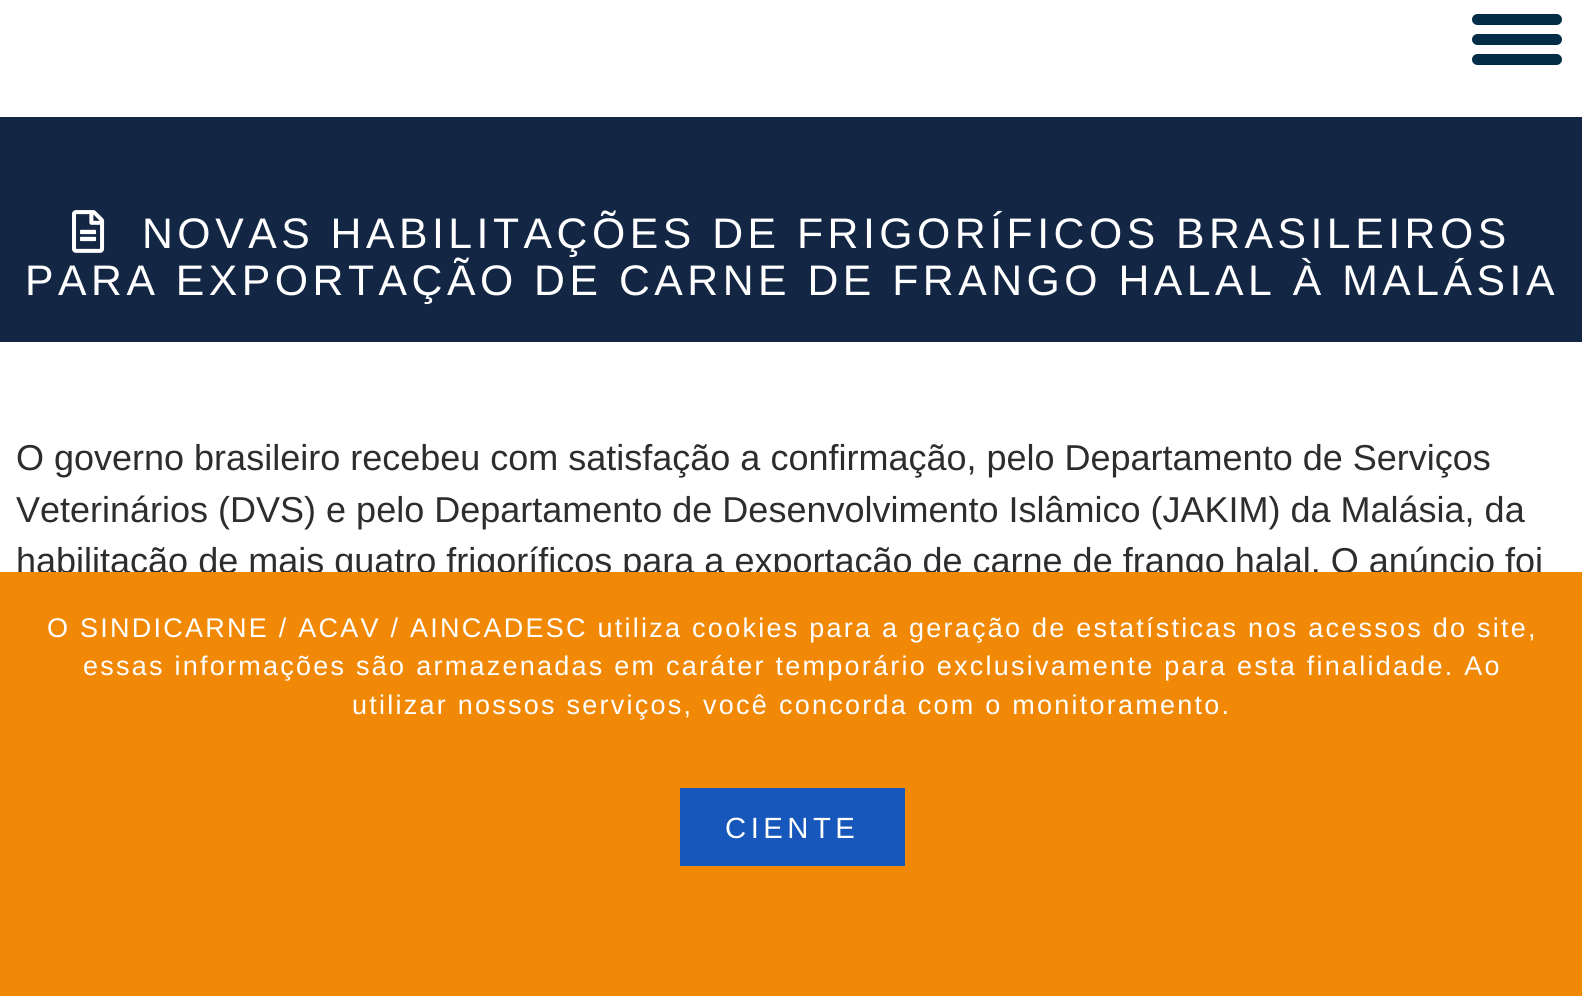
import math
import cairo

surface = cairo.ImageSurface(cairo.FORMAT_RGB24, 1582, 996)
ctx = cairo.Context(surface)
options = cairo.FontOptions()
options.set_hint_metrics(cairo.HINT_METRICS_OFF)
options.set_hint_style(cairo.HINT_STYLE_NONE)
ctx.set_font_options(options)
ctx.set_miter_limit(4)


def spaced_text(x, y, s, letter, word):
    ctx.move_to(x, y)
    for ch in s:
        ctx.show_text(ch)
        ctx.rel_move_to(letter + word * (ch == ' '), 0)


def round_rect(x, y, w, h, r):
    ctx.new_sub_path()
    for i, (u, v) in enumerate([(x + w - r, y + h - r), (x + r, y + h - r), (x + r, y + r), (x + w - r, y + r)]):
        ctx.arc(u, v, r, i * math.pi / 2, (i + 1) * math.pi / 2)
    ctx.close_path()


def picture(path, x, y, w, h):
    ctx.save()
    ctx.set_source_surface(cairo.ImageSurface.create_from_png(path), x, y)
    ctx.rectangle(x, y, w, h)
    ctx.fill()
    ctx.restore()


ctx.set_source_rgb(1, 1, 1)
ctx.paint()
ctx.set_source_rgb(0.012, 0.173, 0.278)
round_rect(1472, 14, 90, 11, 5.5)
ctx.fill()
round_rect(1472, 34, 90, 11, 5.5)
ctx.fill()
round_rect(1472, 54, 90, 11, 5.5)
ctx.fill()
ctx.set_source_rgb(0.075, 0.149, 0.267)
ctx.rectangle(0, 117, 1582, 225)
ctx.fill()
picture("img1.png", 72, 210, 33, 43)
ctx.select_font_face("Liberation Sans")
ctx.set_font_size(42.75)
ctx.set_source_rgb(1, 1, 1)
spaced_text(142, 248, "NOVAS HABILITAÇÕES DE FRIGORÍFICOS BRASILEIROS", 4.5, 0)
spaced_text(25, 295, "PARA EXPORTAÇÃO DE CARNE DE FRANGO HALAL À MALÁSIA", 4.5, 0)
ctx.set_font_size(36)
ctx.set_source_rgb(0.176, 0.176, 0.176)
ctx.move_to(16, 470)
ctx.show_text("O governo brasileiro recebeu com satisfação a confirmação, pelo Departamento de Serviços")
ctx.move_to(16, 522)
ctx.show_text("Veterinários (DVS) e pelo Departamento de Desenvolvimento Islâmico (JAKIM) da Malásia, da")
ctx.move_to(16, 573)
ctx.show_text("habilitação de mais quatro frigoríficos para a exportação de carne de frango halal. O anúncio foi")
ctx.set_source_rgb(0.949, 0.537, 0.024)
ctx.rectangle(0, 572, 1582, 424)
ctx.fill()
ctx.set_font_size(27)
ctx.set_source_rgb(1, 1, 1)
spaced_text(47, 637, "O SINDICARNE / ACAV / AINCADESC utiliza cookies para a geração de estatísticas nos acessos do site,", 2.25, 0)
spaced_text(83, 675, "essas informações são armazenadas em caráter temporário exclusivamente para esta finalidade. Ao", 2.25, 0)
spaced_text(352, 714, "utilizar nossos serviços, você concorda com o monitoramento.", 2.25, 0)
ctx.set_source_rgb(0.09, 0.341, 0.733)
ctx.rectangle(680, 788, 225, 78)
ctx.fill()
ctx.set_font_size(29.25)
ctx.set_source_rgb(1, 1, 1)
spaced_text(725, 838, "CIENTE", 4.5, 0)
surface.write_to_png("page.png")
